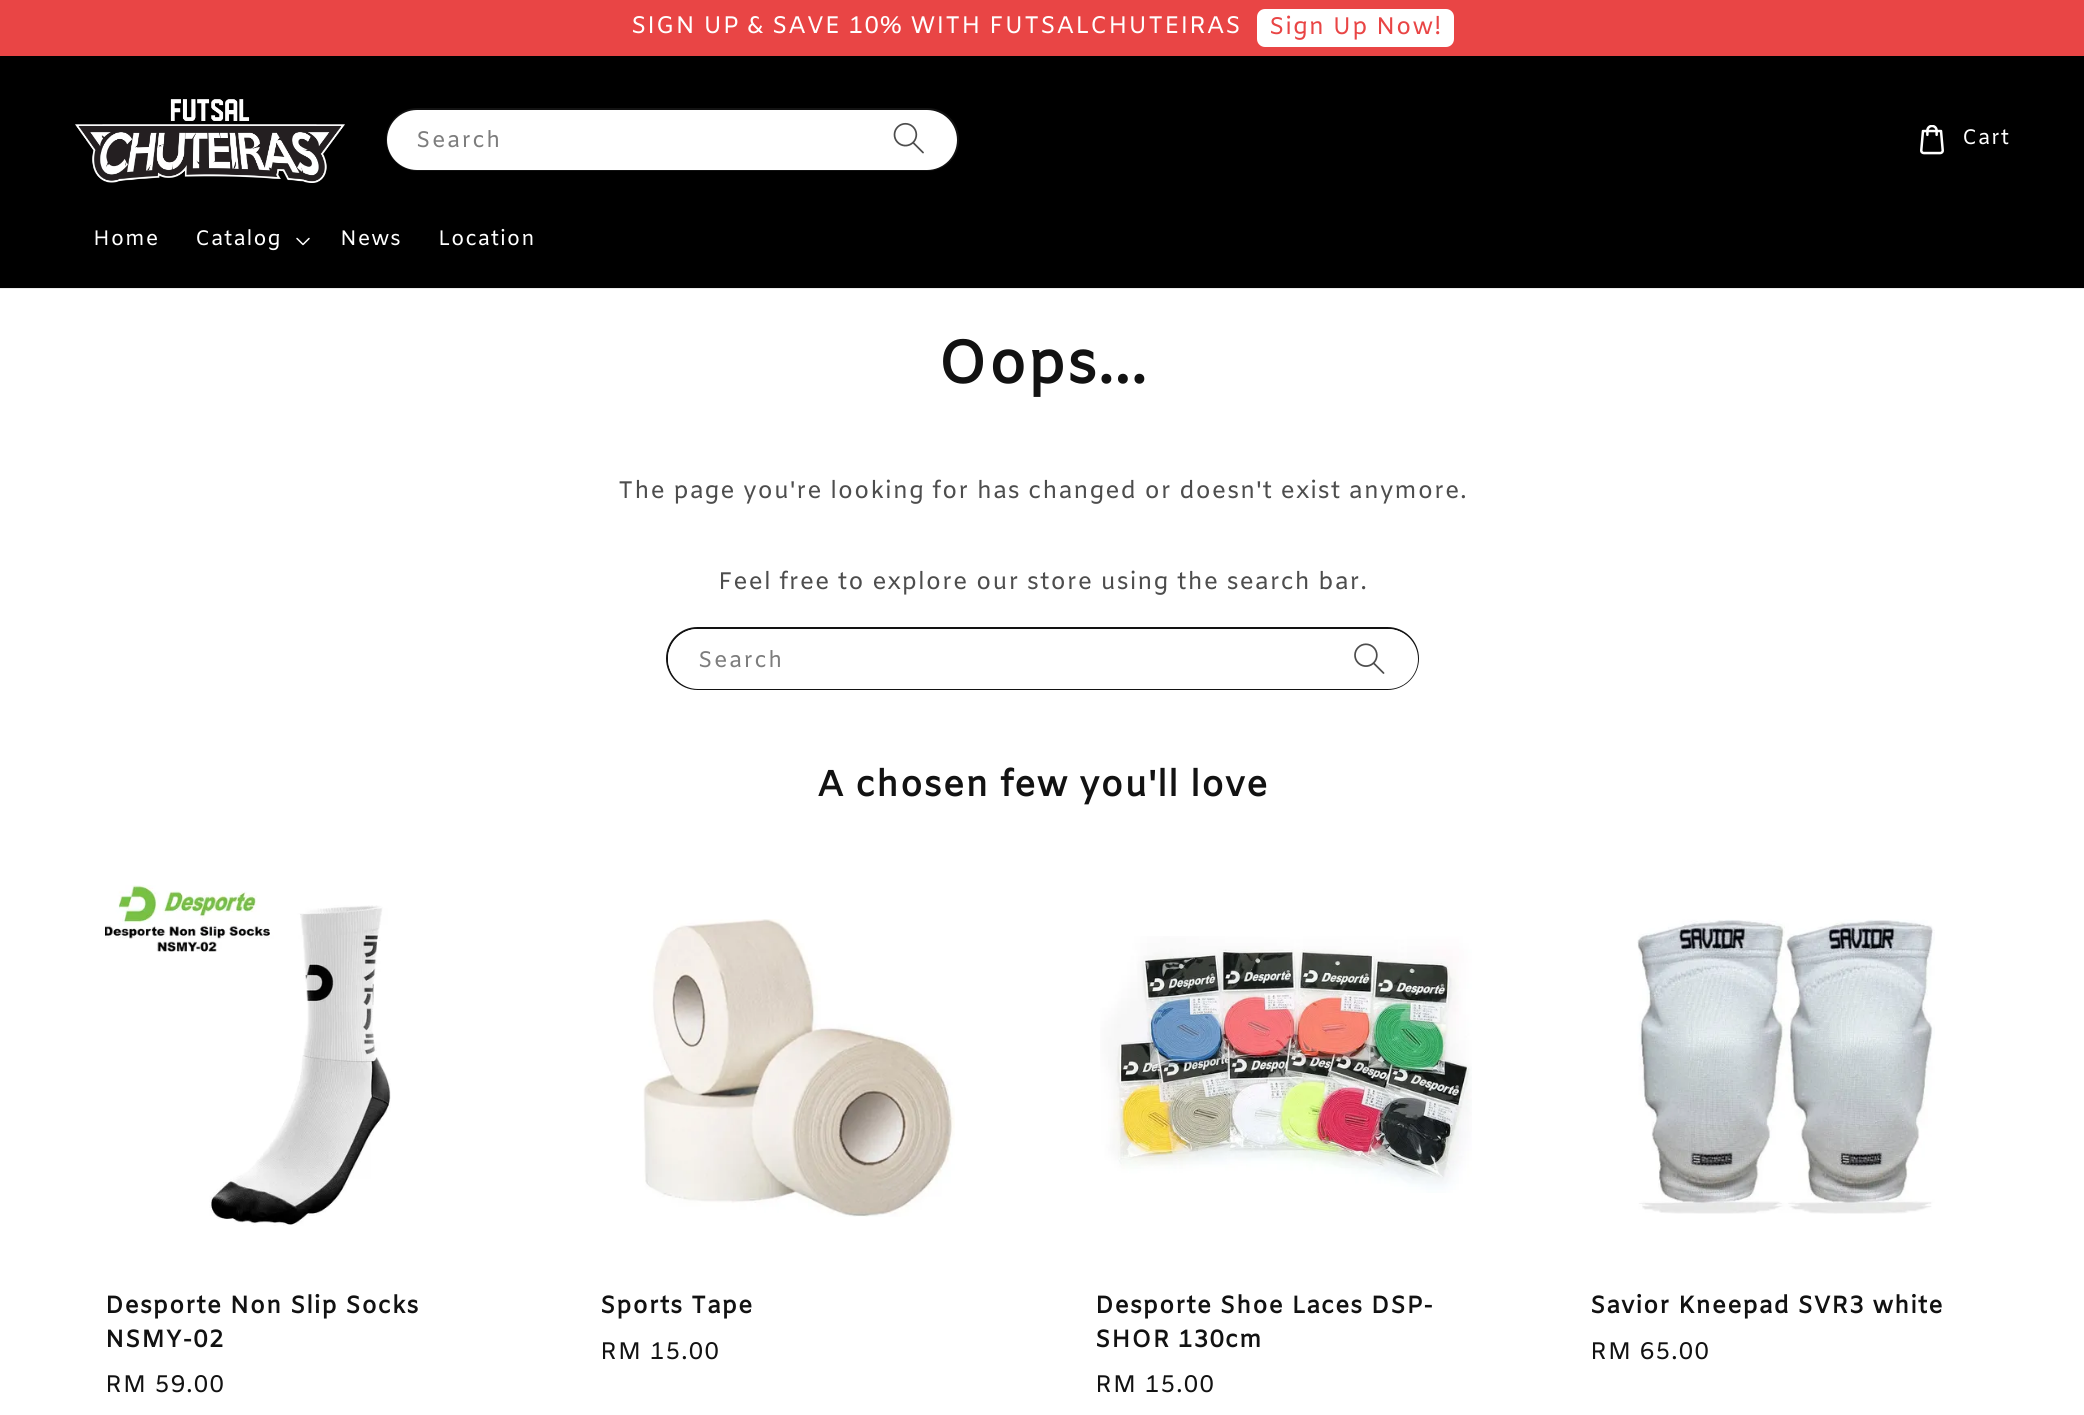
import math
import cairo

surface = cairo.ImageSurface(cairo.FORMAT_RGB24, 2084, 1415)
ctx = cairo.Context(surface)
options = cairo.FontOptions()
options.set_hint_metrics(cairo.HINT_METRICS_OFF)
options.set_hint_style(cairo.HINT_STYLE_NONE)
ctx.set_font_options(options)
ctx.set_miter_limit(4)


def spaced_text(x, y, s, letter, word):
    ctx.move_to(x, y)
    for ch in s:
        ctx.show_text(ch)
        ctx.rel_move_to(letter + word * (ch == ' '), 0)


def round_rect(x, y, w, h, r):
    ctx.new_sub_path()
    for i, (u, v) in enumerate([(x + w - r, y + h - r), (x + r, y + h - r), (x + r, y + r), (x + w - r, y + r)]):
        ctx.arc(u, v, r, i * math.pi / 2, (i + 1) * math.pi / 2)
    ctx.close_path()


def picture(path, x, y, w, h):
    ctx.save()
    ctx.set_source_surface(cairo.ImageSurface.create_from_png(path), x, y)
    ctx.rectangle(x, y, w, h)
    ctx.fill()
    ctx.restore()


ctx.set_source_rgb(1, 1, 1)
ctx.paint()
ctx.set_source_rgb(0.925, 0.925, 0.925)
ctx.rectangle(0, 288, 2084, 1)
ctx.fill()
ctx.set_source_rgb(0.914, 0.271, 0.271)
ctx.rectangle(0, 0, 2084, 56)
ctx.fill()
ctx.select_font_face("Amiko")
ctx.set_font_size(24)
ctx.set_source_rgb(1, 1, 1)
spaced_text(631, 33, "SIGN UP & SAVE 10% WITH FUTSALCHUTEIRAS", 0.9, 0)
round_rect(1257, 9, 197, 38, 8)
ctx.fill()
ctx.set_source_rgb(0.914, 0.271, 0.271)
spaced_text(1269, 34, "Sign Up Now!", 0.9, 0)
ctx.set_source_rgb(0, 0, 0)
ctx.rectangle(0, 56, 2084, 231)
ctx.fill()
ctx.set_source_rgb(0.004, 0.004, 0.004)
ctx.rectangle(0, 287, 2084, 1)
ctx.fill()
picture("img1.png", 75, 99, 270, 84)
round_rect(387, 109, 571, 61, 30.5)
ctx.set_source_rgb(0.071, 0.071, 0.071)
ctx.stroke()
ctx.set_source_rgb(1, 1, 1)
round_rect(387, 110, 570, 60, 30)
ctx.fill()
ctx.set_font_size(22.5)
ctx.set_source_rgb(0.49, 0.49, 0.49)
spaced_text(416, 147, "Search", 1.5, 0)
picture("img2.png", 893, 122, 31, 32)
picture("img3.png", 1920, 125, 24, 30)
ctx.set_font_size(21)
ctx.set_source_rgb(1, 1, 1)
spaced_text(1962, 144, "Cart", 0.9, 0)
spaced_text(93, 245, "Home", 0.9, 0)
spaced_text(195, 245, "Catalog", 0.9, 0)
picture("img4.png", 296, 237, 14, 9)
spaced_text(340, 245, "News", 0.9, 0)
spaced_text(438, 245, "Location", 0.9, 0)
ctx.select_font_face("Amiko", cairo.FONT_SLANT_NORMAL, cairo.FONT_WEIGHT_BOLD)
ctx.set_font_size(60)
ctx.set_source_rgb(0.071, 0.071, 0.071)
spaced_text(937, 383, "Oops...", 0.9, 0)
ctx.select_font_face("Amiko")
ctx.set_font_size(24)
ctx.set_source_rgb(0.302, 0.302, 0.302)
spaced_text(618, 498, "The page you're looking for has changed or doesn't exist anymore.", 0.9, 0)
spaced_text(718, 589, "Feel free to explore our store using the search bar.", 0.9, 0)
round_rect(667, 628, 751, 61, 30.5)
ctx.set_source_rgb(0.071, 0.071, 0.071)
ctx.stroke()
ctx.set_source_rgb(1, 1, 1)
round_rect(668, 629, 750, 60, 30)
ctx.fill()
ctx.set_font_size(22.5)
ctx.set_source_rgb(0.49, 0.49, 0.49)
spaced_text(698, 667, "Search", 1.5, 0)
picture("img5.png", 1354, 643, 31, 31)
ctx.select_font_face("Amiko", cairo.FONT_SLANT_NORMAL, cairo.FONT_WEIGHT_BOLD)
ctx.set_font_size(36)
ctx.set_source_rgb(0.071, 0.071, 0.071)
spaced_text(817, 796, "A chosen few you'll love", 0.9, 0)
picture("img6.png", 105, 885, 286, 341)
ctx.set_font_size(24)
spaced_text(105, 1313, "Desporte Non Slip Socks", 0.9, 0)
spaced_text(105, 1347, "NSMY-02", 0.9, 0)
ctx.select_font_face("Amiko")
spaced_text(105, 1392, "RM 59.00", 0.9, 0)
picture("img7.png", 643, 919, 312, 298)
ctx.select_font_face("Amiko", cairo.FONT_SLANT_NORMAL, cairo.FONT_WEIGHT_BOLD)
spaced_text(600, 1313, "Sports Tape", 0.9, 0)
ctx.select_font_face("Amiko")
spaced_text(600, 1359, "RM 15.00", 0.9, 0)
picture("img8.png", 1100, 936, 372, 257)
ctx.select_font_face("Amiko", cairo.FONT_SLANT_NORMAL, cairo.FONT_WEIGHT_BOLD)
spaced_text(1095, 1313, "Desporte Shoe Laces DSP-", 0.9, 0)
spaced_text(1095, 1347, "SHOR 130cm", 0.9, 0)
ctx.select_font_face("Amiko")
spaced_text(1095, 1392, "RM 15.00", 0.9, 0)
picture("img9.png", 1637, 919, 298, 295)
ctx.select_font_face("Amiko", cairo.FONT_SLANT_NORMAL, cairo.FONT_WEIGHT_BOLD)
spaced_text(1590, 1313, "Savior Kneepad SVR3 white", 0.9, 0)
ctx.select_font_face("Amiko")
spaced_text(1590, 1359, "RM 65.00", 0.9, 0)
surface.write_to_png("page.png")
